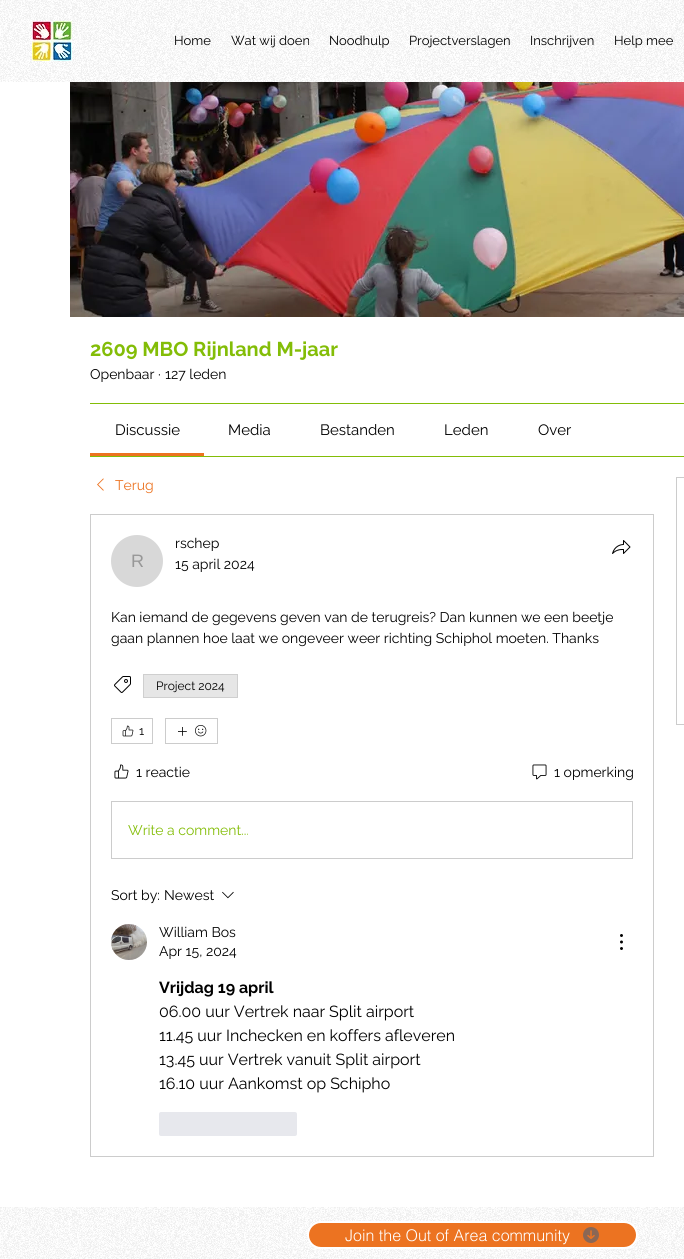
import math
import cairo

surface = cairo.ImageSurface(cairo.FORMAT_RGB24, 684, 1259)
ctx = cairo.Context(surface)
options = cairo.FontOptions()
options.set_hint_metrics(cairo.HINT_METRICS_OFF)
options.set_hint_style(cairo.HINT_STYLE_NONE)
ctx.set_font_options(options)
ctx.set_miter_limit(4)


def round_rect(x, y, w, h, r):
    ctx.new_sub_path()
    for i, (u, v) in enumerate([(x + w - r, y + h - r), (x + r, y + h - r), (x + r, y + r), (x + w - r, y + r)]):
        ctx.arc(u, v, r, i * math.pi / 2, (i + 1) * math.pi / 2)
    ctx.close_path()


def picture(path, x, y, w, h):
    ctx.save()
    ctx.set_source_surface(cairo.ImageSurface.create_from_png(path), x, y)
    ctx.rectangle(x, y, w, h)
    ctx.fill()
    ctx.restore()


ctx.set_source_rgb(1, 1, 1)
ctx.paint()
picture("img1.png", 0, 0, 684, 82)
picture("img2.png", 32, 21, 40, 40)
ctx.select_font_face("Raleway")
ctx.set_font_size(13)
ctx.set_source_rgb(0, 0, 0)
ctx.move_to(174, 45)
ctx.show_text("Home")
ctx.move_to(231, 45)
ctx.show_text("Wat wij doen")
ctx.move_to(329, 45)
ctx.show_text("Noodhulp")
ctx.move_to(409, 45)
ctx.show_text("Projectverslagen")
ctx.move_to(530, 45)
ctx.show_text("Inschrijven")
ctx.move_to(614, 45)
ctx.show_text("Help mee")
picture("img3.png", 70, 82, 614, 235)
ctx.select_font_face("Raleway", cairo.FONT_SLANT_NORMAL, cairo.FONT_WEIGHT_BOLD)
ctx.set_font_size(20)
ctx.set_source_rgb(0.514, 0.741, 0.031)
ctx.move_to(90, 356)
ctx.show_text("2609 MBO Rijnland M-jaar")
ctx.select_font_face("Raleway")
ctx.set_font_size(14)
ctx.set_source_rgb(0, 0, 0)
ctx.move_to(90, 379)
ctx.show_text("Openbaar")
ctx.move_to(158, 379)
ctx.show_text("·")
ctx.move_to(165, 379)
ctx.show_text("127 leden")
ctx.set_source_rgb(0.514, 0.741, 0.031)
ctx.rectangle(90, 403, 594, 1)
ctx.fill()
ctx.rectangle(90, 456, 594, 1)
ctx.fill()
ctx.set_source_rgb(0.925, 0.451, 0.129)
ctx.rectangle(90, 453, 114, 3)
ctx.fill()
ctx.set_font_size(15)
ctx.set_source_rgb(0, 0, 0)
ctx.move_to(115, 435)
ctx.show_text("Discussie")
ctx.move_to(228, 435)
ctx.show_text("Media")
ctx.move_to(320, 435)
ctx.show_text("Bestanden")
ctx.move_to(444, 435)
ctx.show_text("Leden")
ctx.move_to(538, 435)
ctx.show_text("Over")
picture("img4.png", 97, 478, 7, 13)
ctx.set_font_size(14)
ctx.set_source_rgb(0.925, 0.451, 0.129)
ctx.move_to(115, 490)
ctx.show_text("Terug")
ctx.rectangle(90.5, 514.5, 563, 642)
ctx.set_source_rgb(0.8, 0.8, 0.8)
ctx.set_line_width(1)
ctx.stroke()
ctx.set_source_rgb(0, 0, 0)
ctx.move_to(175, 548)
ctx.show_text("rschep")
ctx.move_to(175, 569)
ctx.show_text("15 april 2024")
picture("img5.png", 612, 540, 19, 14)
ctx.set_source_rgb(0.847, 0.847, 0.847)
ctx.arc(137, 561, 26, 0, 2 * math.pi)
ctx.fill()
ctx.select_font_face("Liberation Sans")
ctx.set_font_size(18)
ctx.set_source_rgb(0.592, 0.592, 0.592)
ctx.move_to(131, 567)
ctx.show_text("R")
ctx.select_font_face("Raleway")
ctx.set_font_size(14)
ctx.set_source_rgb(0, 0, 0)
ctx.move_to(111, 622)
ctx.show_text("Kan iemand de gegevens geven van de terugreis? Dan kunnen we een beetje")
ctx.move_to(111, 643)
ctx.show_text("gaan plannen hoe laat we ongeveer weer richting Schiphol moeten. Thanks")
picture("img6.png", 114, 676, 17, 17)
ctx.set_source_rgb(0.902, 0.902, 0.902)
ctx.rectangle(143.5, 674.5, 94, 23)
ctx.fill_preserve()
ctx.set_source_rgb(0.812, 0.812, 0.812)
ctx.stroke()
ctx.set_font_size(12)
ctx.set_source_rgb(0, 0, 0)
ctx.move_to(156, 690)
ctx.show_text("Project 2024")
ctx.rectangle(111.5, 718.5, 41, 25)
ctx.set_source_rgb(0.8, 0.8, 0.8)
ctx.stroke()
picture("img7.png", 122, 725, 12, 12)
ctx.set_source_rgb(0, 0, 0)
ctx.move_to(139, 735)
ctx.show_text("1")
ctx.rectangle(165.5, 718.5, 52, 25)
ctx.set_source_rgb(0.8, 0.8, 0.8)
ctx.stroke()
picture("img8.png", 178, 727, 9, 9)
picture("img9.png", 195, 725, 12, 12)
picture("img10.png", 114, 764, 15, 15)
ctx.set_font_size(14)
ctx.set_source_rgb(0, 0, 0)
ctx.move_to(136, 777)
ctx.show_text("1 reactie")
picture("img11.png", 532, 764, 15, 16)
ctx.move_to(554, 777)
ctx.show_text("1 opmerking")
ctx.rectangle(111.5, 801.5, 521, 57)
ctx.set_source_rgb(0.8, 0.8, 0.8)
ctx.stroke()
ctx.set_source_rgb(0.514, 0.741, 0.031)
ctx.move_to(128, 835)
ctx.show_text("Write a comment...")
ctx.set_source_rgb(0, 0, 0)
ctx.move_to(111, 900)
ctx.show_text("Sort by:")
ctx.move_to(164, 900)
ctx.show_text("Newest")
picture("img12.png", 222, 891, 12, 8)
picture("img13.png", 111, 924, 36, 36)
ctx.move_to(159, 937)
ctx.show_text("William Bos")
ctx.move_to(159, 956)
ctx.show_text("Apr 15, 2024")
picture("img14.png", 620, 934, 3, 16)
ctx.select_font_face("Raleway", cairo.FONT_SLANT_NORMAL, cairo.FONT_WEIGHT_BOLD)
ctx.set_font_size(16)
ctx.move_to(159, 993)
ctx.show_text("Vrijdag 19 april")
ctx.select_font_face("Raleway")
ctx.move_to(159, 1017)
ctx.show_text("06.00 uur Vertrek naar Split airport")
ctx.move_to(159, 1041)
ctx.show_text("11.45 uur Inchecken en koffers afleveren")
ctx.move_to(159, 1065)
ctx.show_text("13.45 uur Vertrek vanuit Split airport")
ctx.move_to(159, 1089)
ctx.show_text("16.10 uur Aankomst op Schipho")
ctx.set_source_rgb(0.906, 0.91, 0.929)
round_rect(159, 1112, 138, 24, 2)
ctx.fill()
ctx.rectangle(676.5, 477.5, 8, 247)
ctx.set_source_rgb(0.8, 0.8, 0.8)
ctx.stroke()
picture("img15.png", 0, 1207, 684, 52)
ctx.set_source_rgb(0.925, 0.451, 0.129)
round_rect(308, 1222, 329, 26, 13)
ctx.fill_preserve()
ctx.set_source_rgb(1, 1, 1)
ctx.set_line_width(2)
ctx.stroke()
ctx.select_font_face("helvetica Light")
ctx.move_to(345, 1241)
ctx.show_text("Join the Out of Area community")
picture("img16.png", 583, 1227, 16, 16)
surface.write_to_png("page.png")
